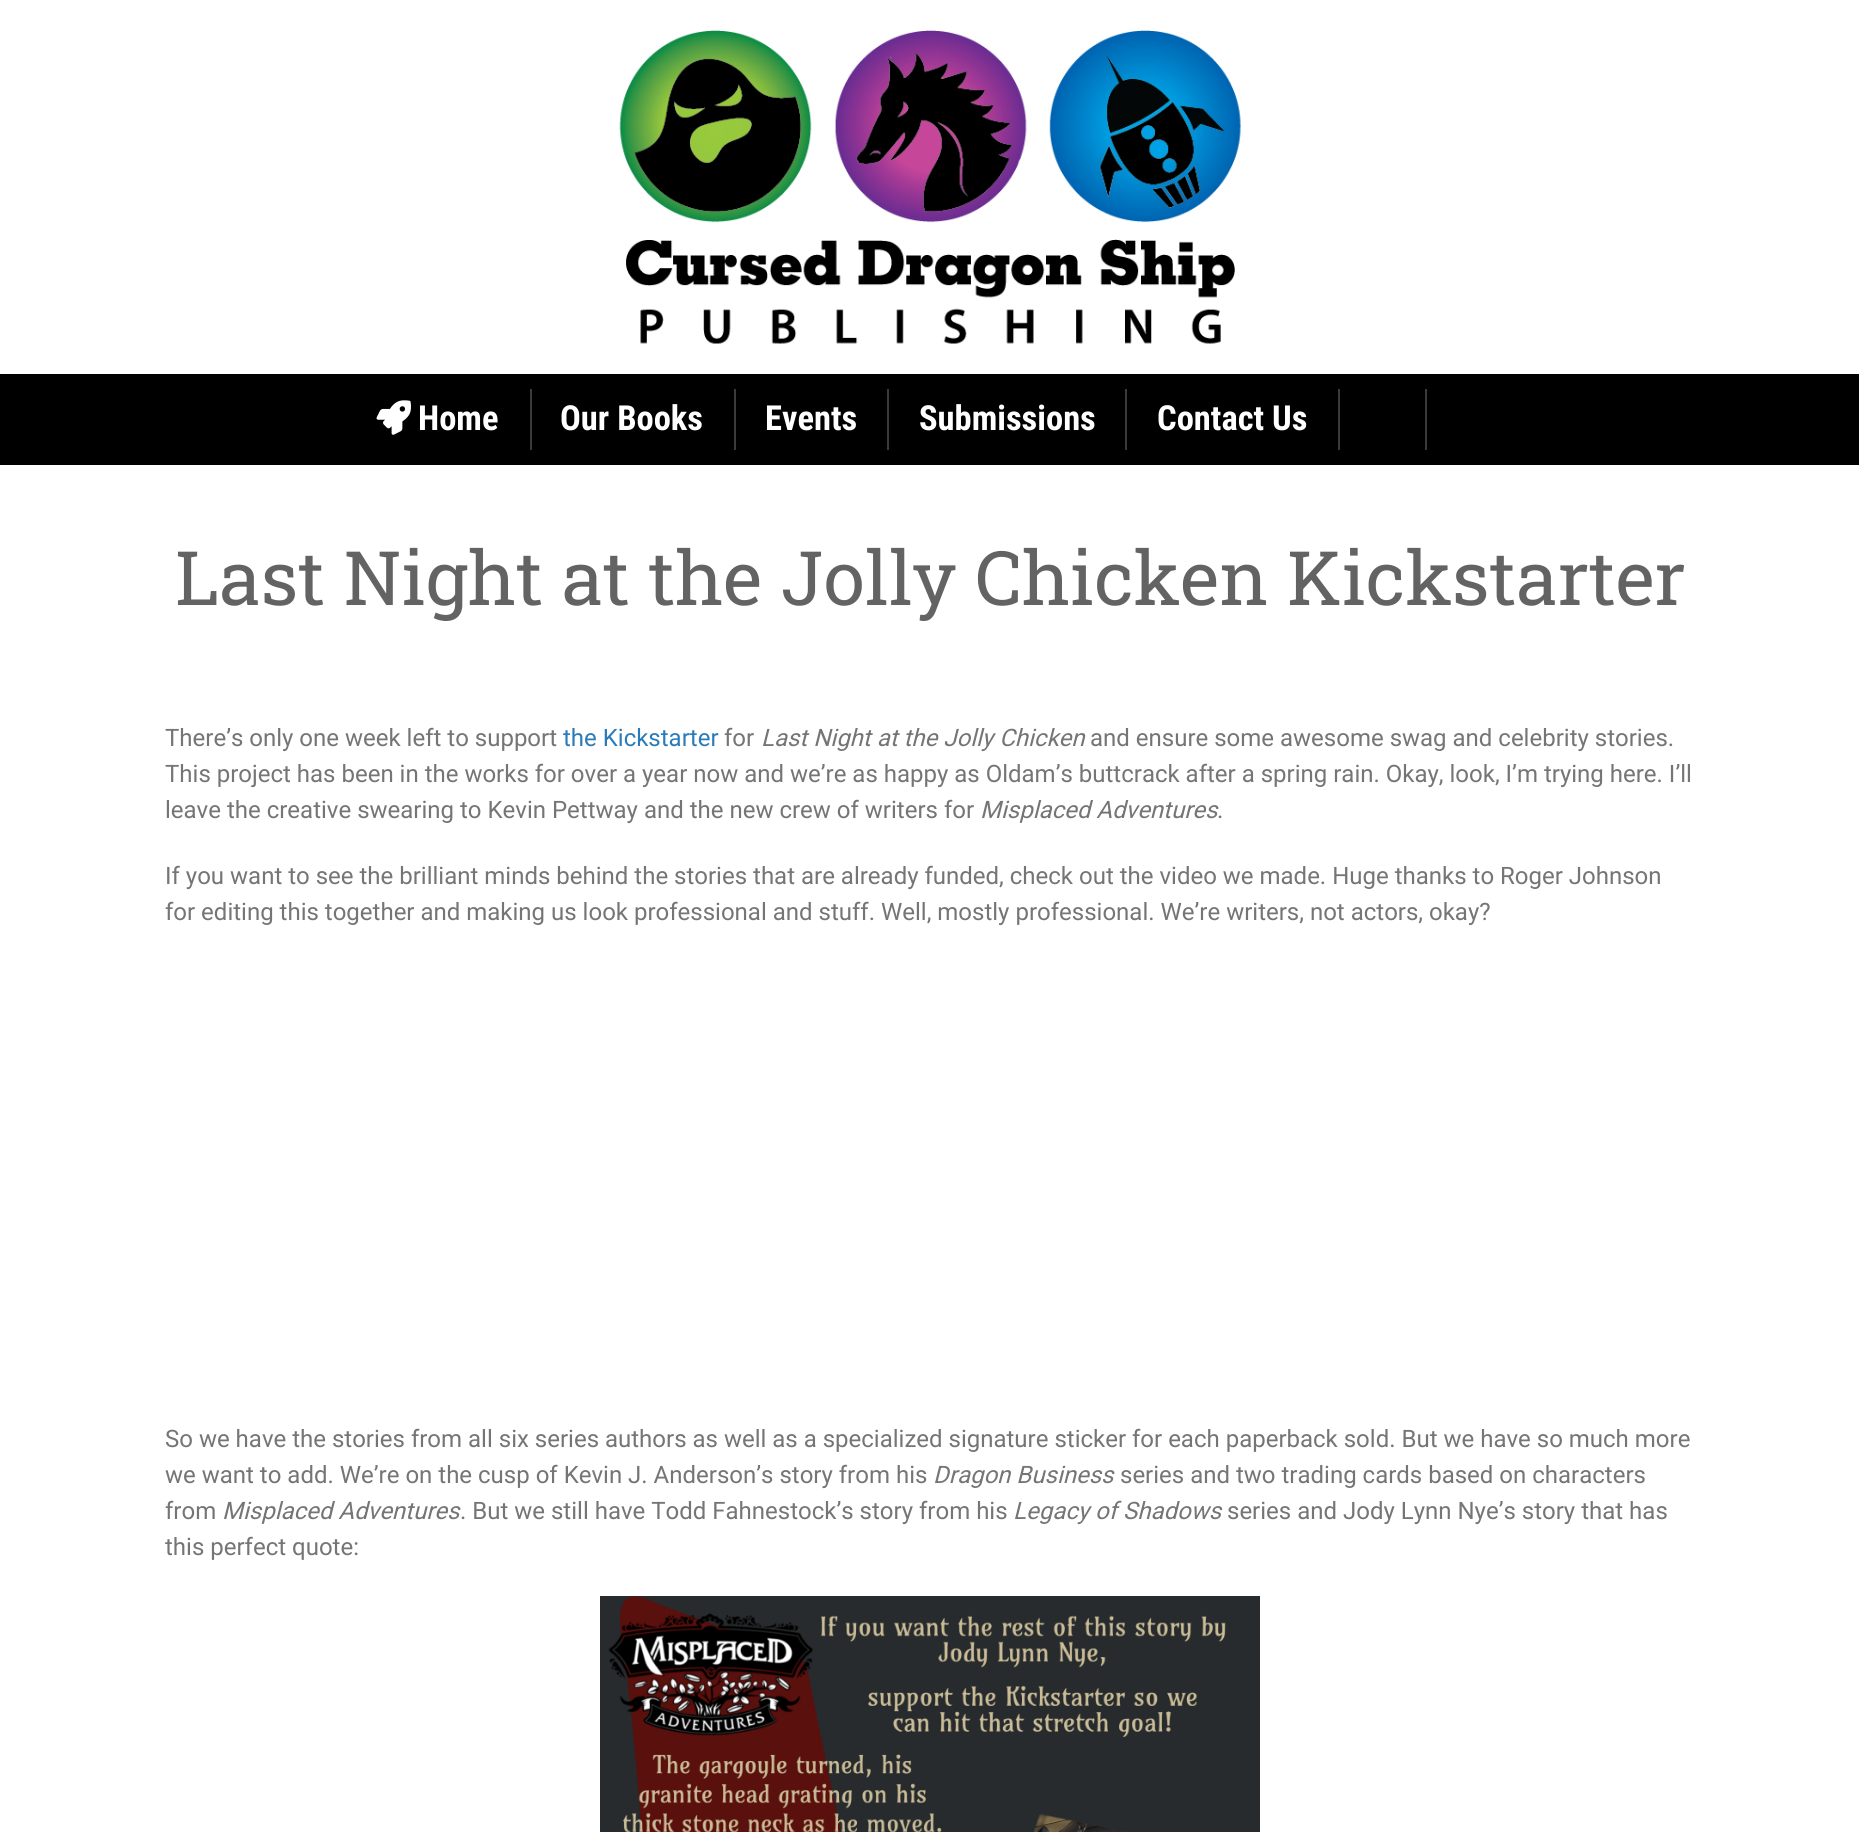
import math
import cairo

surface = cairo.ImageSurface(cairo.FORMAT_RGB24, 1859, 1832)
ctx = cairo.Context(surface)
options = cairo.FontOptions()
options.set_hint_metrics(cairo.HINT_METRICS_OFF)
options.set_hint_style(cairo.HINT_STYLE_NONE)
ctx.set_font_options(options)
ctx.set_miter_limit(4)


def picture(path, x, y, w, h):
    ctx.save()
    ctx.set_source_surface(cairo.ImageSurface.create_from_png(path), x, y)
    ctx.rectangle(x, y, w, h)
    ctx.fill()
    ctx.restore()


ctx.set_source_rgb(1, 1, 1)
ctx.paint()
picture("img1.png", 619, 30, 622, 314)
ctx.set_source_rgb(0, 0, 0)
ctx.rectangle(0, 374, 1859, 91)
ctx.fill()
picture("img2.png", 376, 400, 35, 35)
ctx.select_font_face("Roboto Condensed", cairo.FONT_SLANT_NORMAL, cairo.FONT_WEIGHT_BOLD)
ctx.set_font_size(34.5)
ctx.set_source_rgb(1, 1, 1)
ctx.move_to(418, 430)
ctx.show_text("Home")
ctx.set_source_rgb(0.227, 0.227, 0.227)
ctx.rectangle(530, 389, 2, 61)
ctx.fill()
ctx.set_source_rgb(1, 1, 1)
ctx.move_to(560, 430)
ctx.show_text("Our Books")
ctx.set_source_rgb(0.227, 0.227, 0.227)
ctx.rectangle(734, 389, 2, 61)
ctx.fill()
ctx.set_source_rgb(1, 1, 1)
ctx.move_to(765, 430)
ctx.show_text("Events")
ctx.set_source_rgb(0.227, 0.227, 0.227)
ctx.rectangle(887, 389, 2, 61)
ctx.fill()
ctx.set_source_rgb(1, 1, 1)
ctx.move_to(919, 430)
ctx.show_text("Submissions")
ctx.set_source_rgb(0.227, 0.227, 0.227)
ctx.rectangle(1125, 389, 2, 61)
ctx.fill()
ctx.set_source_rgb(1, 1, 1)
ctx.move_to(1157, 430)
ctx.show_text("Contact Us")
ctx.set_source_rgb(0.227, 0.227, 0.227)
ctx.rectangle(1338, 389, 2, 61)
ctx.fill()
ctx.rectangle(1425, 389, 2, 61)
ctx.fill()
ctx.select_font_face("Roboto Slab")
ctx.set_font_size(75)
ctx.set_source_rgb(0.388, 0.388, 0.388)
ctx.move_to(175, 605)
ctx.show_text("Last Night at the Jolly Chicken Kickstarter")
ctx.select_font_face("Roboto")
ctx.set_font_size(24)
ctx.set_source_rgb(0.459, 0.459, 0.459)
ctx.move_to(165, 746)
ctx.show_text("There’s only one week left to support")
ctx.set_source_rgb(0.169, 0.482, 0.725)
ctx.move_to(563, 746)
ctx.show_text("the Kickstarter")
ctx.set_source_rgb(0.459, 0.459, 0.459)
ctx.move_to(724, 746)
ctx.show_text("for")
ctx.select_font_face("Roboto", cairo.FONT_SLANT_ITALIC)
ctx.move_to(761, 746)
ctx.show_text("Last Night at the Jolly Chicken")
ctx.select_font_face("Roboto")
ctx.move_to(1090, 746)
ctx.show_text("and ensure some awesome swag and celebrity stories.")
ctx.move_to(165, 782)
ctx.show_text("This project has been in the works for over a year now and we’re as happy as Oldam’s buttcrack after a spring rain. Okay, look, I’m trying here. I’ll")
ctx.move_to(165, 818)
ctx.show_text("leave the creative swearing to Kevin Pettway and the new crew of writers for")
ctx.select_font_face("Roboto", cairo.FONT_SLANT_ITALIC)
ctx.move_to(980, 818)
ctx.show_text("Misplaced Adventures")
ctx.select_font_face("Roboto")
ctx.move_to(1217, 818)
ctx.show_text(".")
ctx.move_to(165, 884)
ctx.show_text("If you want to see the brilliant minds behind the stories that are already funded, check out the video we made. Huge thanks to Roger Johnson")
ctx.move_to(165, 920)
ctx.show_text("for editing this together and making us look professional and stuff. Well, mostly professional. We’re writers, not actors, okay?")
ctx.move_to(165, 1447)
ctx.show_text("So we have the stories from all six series authors as well as a specialized signature sticker for each paperback sold. But we have so much more")
ctx.move_to(165, 1483)
ctx.show_text("we want to add. We’re on the cusp of Kevin J. Anderson’s story from his")
ctx.select_font_face("Roboto", cairo.FONT_SLANT_ITALIC)
ctx.move_to(933, 1483)
ctx.show_text("Dragon Business")
ctx.select_font_face("Roboto")
ctx.move_to(1120, 1483)
ctx.show_text("series and two trading cards based on characters")
ctx.move_to(165, 1519)
ctx.show_text("from")
ctx.select_font_face("Roboto", cairo.FONT_SLANT_ITALIC)
ctx.move_to(222, 1519)
ctx.show_text("Misplaced Adventures")
ctx.select_font_face("Roboto")
ctx.move_to(460, 1519)
ctx.show_text(". But we still have Todd Fahnestock’s story from his")
ctx.select_font_face("Roboto", cairo.FONT_SLANT_ITALIC)
ctx.move_to(1013, 1519)
ctx.show_text("Legacy of Shadows")
ctx.select_font_face("Roboto")
ctx.move_to(1227, 1519)
ctx.show_text("series and Jody Lynn Nye’s story that has")
ctx.move_to(165, 1555)
ctx.show_text("this perfect quote:")
picture("img3.png", 600, 1596, 660, 236)
surface.write_to_png("page.png")
